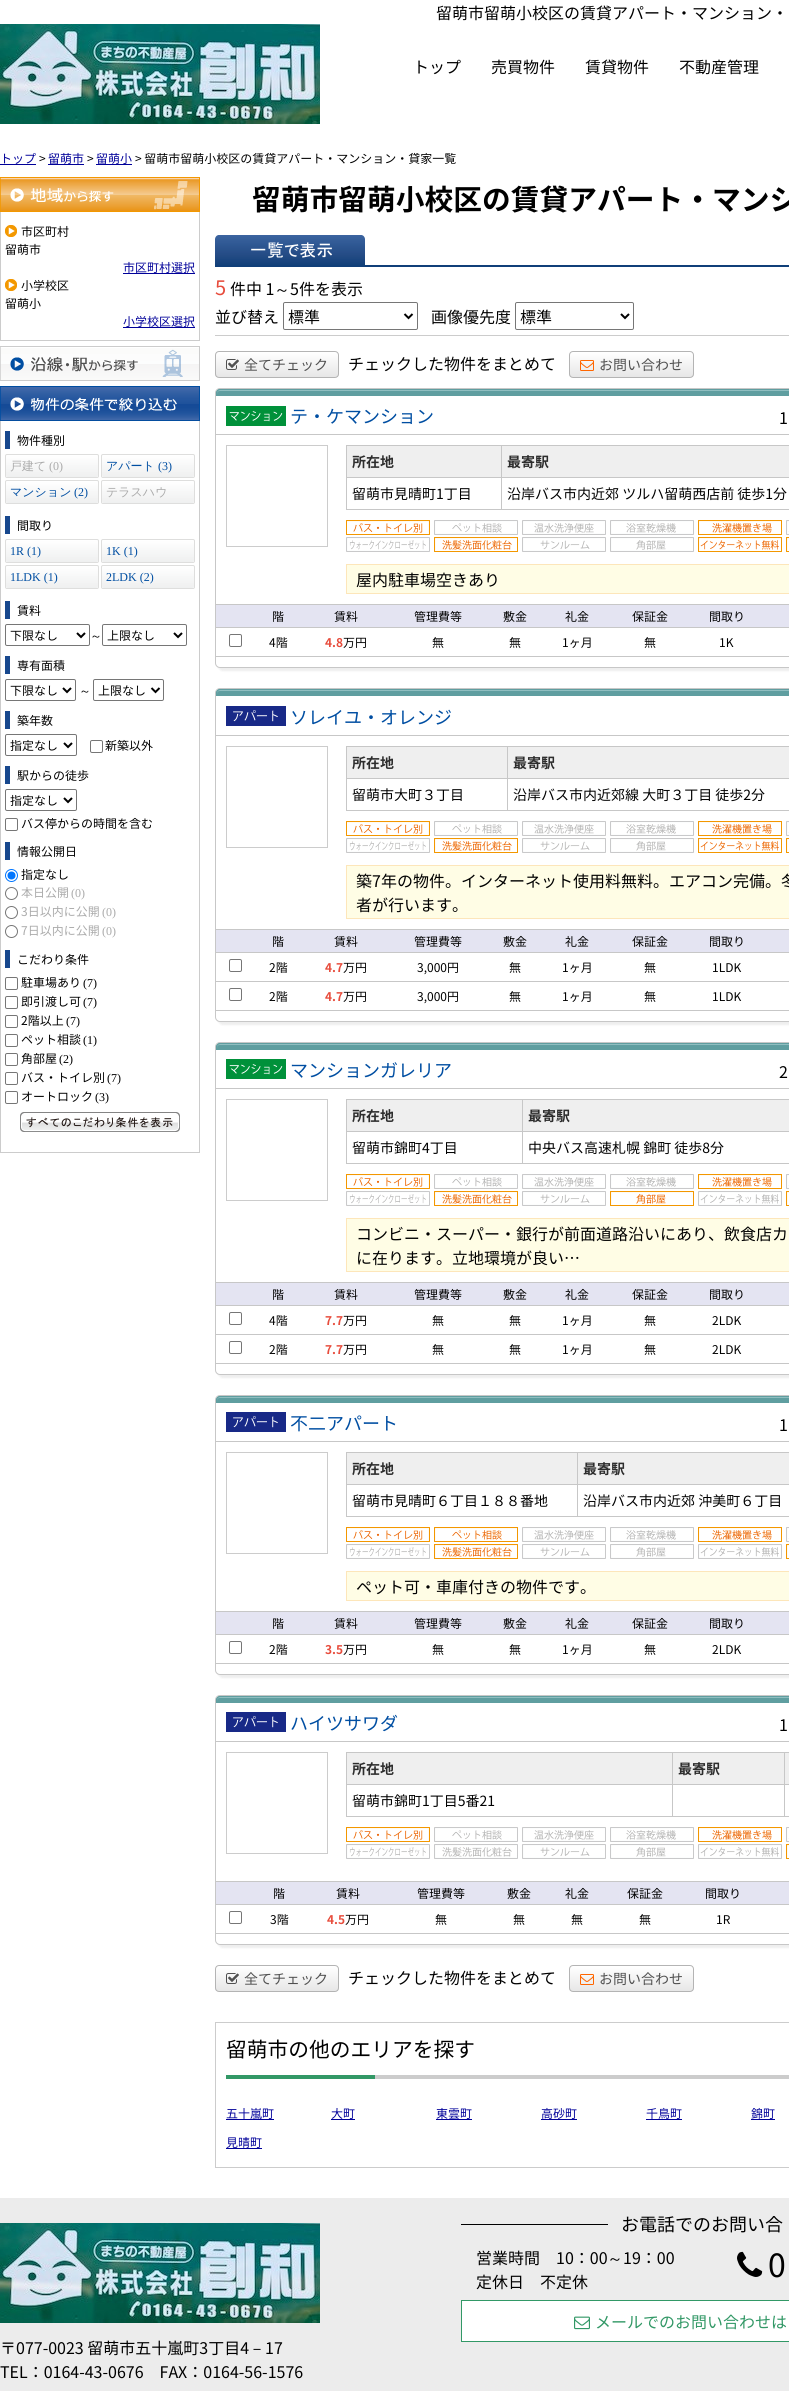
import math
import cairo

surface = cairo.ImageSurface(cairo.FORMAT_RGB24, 789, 2391)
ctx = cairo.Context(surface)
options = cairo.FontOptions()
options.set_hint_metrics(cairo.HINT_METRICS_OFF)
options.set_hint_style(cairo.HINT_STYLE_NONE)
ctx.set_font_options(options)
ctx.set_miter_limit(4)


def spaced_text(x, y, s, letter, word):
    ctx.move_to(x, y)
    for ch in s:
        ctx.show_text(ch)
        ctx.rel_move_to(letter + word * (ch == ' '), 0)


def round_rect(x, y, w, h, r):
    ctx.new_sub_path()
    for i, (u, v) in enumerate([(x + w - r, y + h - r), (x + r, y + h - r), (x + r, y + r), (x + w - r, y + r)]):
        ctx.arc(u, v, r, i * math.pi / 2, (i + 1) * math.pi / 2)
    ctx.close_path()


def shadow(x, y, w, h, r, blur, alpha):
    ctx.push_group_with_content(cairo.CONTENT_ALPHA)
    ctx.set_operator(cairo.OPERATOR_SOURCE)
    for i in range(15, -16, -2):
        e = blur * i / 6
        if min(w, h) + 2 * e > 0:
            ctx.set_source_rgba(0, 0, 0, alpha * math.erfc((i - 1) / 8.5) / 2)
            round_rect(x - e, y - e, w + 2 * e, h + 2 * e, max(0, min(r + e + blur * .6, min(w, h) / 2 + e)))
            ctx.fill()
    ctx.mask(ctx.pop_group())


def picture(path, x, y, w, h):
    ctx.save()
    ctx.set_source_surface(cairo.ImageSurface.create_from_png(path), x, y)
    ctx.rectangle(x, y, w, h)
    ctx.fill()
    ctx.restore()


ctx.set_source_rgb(1, 1, 1)
ctx.paint()
ctx.select_font_face("Noto Sans JP")
ctx.set_font_size(16)
ctx.set_source_rgb(0, 0, 0)
ctx.move_to(436, 19)
ctx.show_text("留萌市留萌小校区の賃貸アパート・マンション・")
picture("img1.png", 0, 24, 320, 100)
ctx.move_to(413, 73)
ctx.show_text("トップ")
ctx.move_to(491, 73)
ctx.show_text("売買物件")
ctx.move_to(585, 73)
ctx.show_text("賃貸物件")
ctx.move_to(679, 73)
ctx.show_text("不動産管理")
ctx.set_font_size(12)
ctx.set_source_rgb(0, 0, 0.6)
ctx.move_to(0, 163)
ctx.show_text("トップ")
ctx.rectangle(0, 164, 36, 1)
ctx.fill()
ctx.set_source_rgb(0, 0, 0)
ctx.move_to(39, 163)
ctx.show_text(">")
ctx.set_source_rgb(0, 0, 0.6)
ctx.move_to(48, 163)
ctx.show_text("留萌市")
ctx.rectangle(48, 164, 36, 1)
ctx.fill()
ctx.set_source_rgb(0, 0, 0)
ctx.move_to(87, 163)
ctx.show_text(">")
ctx.set_source_rgb(0, 0, 0.6)
ctx.move_to(96, 163)
ctx.show_text("留萌小")
ctx.rectangle(96, 164, 36, 1)
ctx.fill()
ctx.set_source_rgb(0, 0, 0)
ctx.move_to(135, 163)
ctx.show_text("> 留萌市留萌小校区の賃貸アパート・マンション・貸家一覧")
picture("img2.png", 0, 177, 200, 35)
ctx.set_source_rgb(0.8, 0.8, 0.8)
ctx.rectangle(199, 212, 1, 129)
ctx.fill()
ctx.rectangle(0, 340, 200, 1)
ctx.fill()
ctx.rectangle(0, 212, 1, 129)
ctx.fill()
picture("img3.png", 5, 225, 12, 12)
ctx.set_source_rgb(0, 0, 0)
ctx.move_to(21, 236)
ctx.show_text("市区町村")
ctx.move_to(5, 254)
ctx.show_text("留萌市")
ctx.set_source_rgb(0, 0, 0.6)
ctx.move_to(123, 272)
ctx.show_text("市区町村選択")
ctx.rectangle(123, 273, 72, 1)
ctx.fill()
picture("img3.png", 5, 279, 12, 12)
ctx.set_source_rgb(0, 0, 0)
ctx.move_to(21, 290)
ctx.show_text("小学校区")
ctx.move_to(5, 308)
ctx.show_text("留萌小")
ctx.set_source_rgb(0, 0, 0.6)
ctx.move_to(123, 326)
ctx.show_text("小学校区選択")
ctx.rectangle(123, 327, 72, 1)
ctx.fill()
picture("img4.png", 0, 346, 200, 35)
picture("img5.png", 0, 386, 200, 35)
ctx.set_source_rgb(0.8, 0.8, 0.8)
ctx.rectangle(199, 421, 1, 732)
ctx.fill()
ctx.rectangle(0, 1152, 200, 1)
ctx.fill()
ctx.rectangle(0, 421, 1, 732)
ctx.fill()
ctx.set_source_rgb(0.094, 0.282, 0.557)
ctx.rectangle(5, 431, 5, 18)
ctx.fill()
ctx.set_source_rgb(0, 0, 0)
ctx.move_to(17, 445)
ctx.show_text("物件種別")
picture("img6.png", 5, 454, 94, 24)
ctx.select_font_face("WenQuanYi Zen Hei Medium")
ctx.set_source_rgb(0.667, 0.667, 0.667)
ctx.move_to(10, 470)
ctx.show_text("戸建て")
ctx.select_font_face("Liberation Serif")
ctx.move_to(49, 470)
ctx.show_text("(0)")
picture("img6.png", 101, 454, 94, 24)
ctx.select_font_face("WenQuanYi Zen Hei Medium")
ctx.set_source_rgb(0, 0.306, 0.635)
ctx.move_to(106, 470)
ctx.show_text("アパート")
ctx.select_font_face("Liberation Serif")
ctx.move_to(158, 470)
ctx.show_text("(3)")
picture("img6.png", 5, 480, 94, 24)
ctx.select_font_face("WenQuanYi Zen Hei Medium")
ctx.move_to(10, 496)
ctx.show_text("マンション")
ctx.select_font_face("Liberation Serif")
ctx.move_to(74, 496)
ctx.show_text("(2)")
picture("img6.png", 101, 480, 94, 24)
ctx.select_font_face("WenQuanYi Zen Hei Medium")
ctx.set_source_rgb(0.667, 0.667, 0.667)
ctx.move_to(106, 496)
ctx.show_text("テラスハウ")
ctx.set_source_rgb(0.094, 0.282, 0.557)
ctx.rectangle(5, 516, 5, 18)
ctx.fill()
ctx.select_font_face("Noto Sans JP")
ctx.set_source_rgb(0, 0, 0)
ctx.move_to(17, 530)
ctx.show_text("間取り")
picture("img6.png", 5, 539, 94, 24)
ctx.select_font_face("Liberation Serif")
ctx.set_source_rgb(0, 0.306, 0.635)
ctx.move_to(10, 555)
ctx.show_text("1R (1)")
picture("img6.png", 101, 539, 94, 24)
ctx.move_to(106, 555)
ctx.show_text("1K (1)")
picture("img6.png", 5, 565, 94, 24)
ctx.move_to(10, 581)
ctx.show_text("1LDK (1)")
picture("img6.png", 101, 565, 94, 24)
ctx.move_to(106, 581)
ctx.show_text("2LDK (2)")
ctx.set_source_rgb(0.094, 0.282, 0.557)
ctx.rectangle(5, 601, 5, 18)
ctx.fill()
ctx.select_font_face("Noto Sans JP")
ctx.set_source_rgb(0, 0, 0)
ctx.move_to(17, 615)
ctx.show_text("賃料")
round_rect(5.5, 624.5, 84, 21, 1.5)
ctx.set_source_rgb(0.463, 0.463, 0.463)
ctx.set_line_width(1)
ctx.stroke()
ctx.new_path()
ctx.move_to(77, 633)
ctx.line_to(81, 637)
ctx.line_to(85, 633)
ctx.set_source_rgb(0, 0, 0)
ctx.set_line_width(2)
ctx.stroke()
ctx.move_to(10, 640)
ctx.show_text("下限なし")
ctx.select_font_face("WenQuanYi Zen Hei Medium")
ctx.move_to(90, 640)
ctx.show_text("～")
round_rect(102.5, 624.5, 84, 21, 1.5)
ctx.set_source_rgb(0.463, 0.463, 0.463)
ctx.set_line_width(1)
ctx.stroke()
ctx.new_path()
ctx.move_to(174, 633)
ctx.line_to(178, 637)
ctx.line_to(182, 633)
ctx.set_source_rgb(0, 0, 0)
ctx.set_line_width(2)
ctx.stroke()
ctx.select_font_face("Noto Sans JP")
ctx.move_to(107, 640)
ctx.show_text("上限なし")
ctx.set_source_rgb(0.094, 0.282, 0.557)
ctx.rectangle(5, 656, 5, 18)
ctx.fill()
ctx.set_source_rgb(0, 0, 0)
ctx.move_to(17, 670)
ctx.show_text("専有面積")
round_rect(5.5, 679.5, 70, 21, 1.5)
ctx.set_source_rgb(0.463, 0.463, 0.463)
ctx.set_line_width(1)
ctx.stroke()
ctx.new_path()
ctx.move_to(63, 688)
ctx.line_to(67, 692)
ctx.line_to(71, 688)
ctx.set_source_rgb(0, 0, 0)
ctx.set_line_width(2)
ctx.stroke()
ctx.move_to(10, 695)
ctx.show_text("下限なし")
ctx.select_font_face("WenQuanYi Zen Hei Medium")
ctx.move_to(79, 695)
ctx.show_text("～")
round_rect(93.5, 679.5, 70, 21, 1.5)
ctx.set_source_rgb(0.463, 0.463, 0.463)
ctx.set_line_width(1)
ctx.stroke()
ctx.new_path()
ctx.move_to(151.5, 688)
ctx.line_to(155.5, 692)
ctx.line_to(159.5, 688)
ctx.set_source_rgb(0, 0, 0)
ctx.set_line_width(2)
ctx.stroke()
ctx.select_font_face("Noto Sans JP")
ctx.move_to(98, 695)
ctx.show_text("上限なし")
ctx.set_source_rgb(0.094, 0.282, 0.557)
ctx.rectangle(5, 711, 5, 18)
ctx.fill()
ctx.set_source_rgb(0, 0, 0)
ctx.move_to(17, 725)
ctx.show_text("築年数")
round_rect(5.5, 734.5, 71, 21, 1.5)
ctx.set_source_rgb(0.463, 0.463, 0.463)
ctx.set_line_width(1)
ctx.stroke()
ctx.new_path()
ctx.move_to(64, 743)
ctx.line_to(68, 747)
ctx.line_to(72, 743)
ctx.set_source_rgb(0, 0, 0)
ctx.set_line_width(2)
ctx.stroke()
ctx.move_to(10, 750)
ctx.show_text("指定なし")
round_rect(90.5, 740.5, 12, 12, 1.5)
ctx.set_source_rgb(0.463, 0.463, 0.463)
ctx.set_line_width(1)
ctx.stroke()
ctx.set_source_rgb(0, 0, 0)
ctx.move_to(105, 750)
ctx.show_text("新築以外")
ctx.set_source_rgb(0.094, 0.282, 0.557)
ctx.rectangle(5, 766, 5, 18)
ctx.fill()
ctx.set_source_rgb(0, 0, 0)
ctx.move_to(17, 780)
ctx.show_text("駅からの徒歩")
round_rect(5.5, 789.5, 71, 21, 1.5)
ctx.set_source_rgb(0.463, 0.463, 0.463)
ctx.stroke()
ctx.new_path()
ctx.move_to(64, 798)
ctx.line_to(68, 802)
ctx.line_to(72, 798)
ctx.set_source_rgb(0, 0, 0)
ctx.set_line_width(2)
ctx.stroke()
ctx.move_to(10, 805)
ctx.show_text("指定なし")
round_rect(5.5, 818.5, 12, 12, 1.5)
ctx.set_source_rgb(0.463, 0.463, 0.463)
ctx.set_line_width(1)
ctx.stroke()
ctx.set_source_rgb(0, 0, 0)
ctx.move_to(21, 828)
ctx.show_text("バス停からの時間を含む")
ctx.set_source_rgb(0.094, 0.282, 0.557)
ctx.rectangle(5, 842, 5, 18)
ctx.fill()
ctx.set_source_rgb(0, 0, 0)
ctx.move_to(17, 856)
ctx.show_text("情報公開日")
ctx.new_path()
ctx.arc(11.5, 875.5, 6, 0, 2 * math.pi)
ctx.set_source_rgb(0, 0.459, 1)
ctx.stroke()
ctx.arc(11.5, 875.5, 4, 0, 2 * math.pi)
ctx.fill()
ctx.set_source_rgb(0, 0, 0)
ctx.move_to(21, 879)
ctx.show_text("指定なし")
ctx.new_path()
ctx.arc(11.5, 893.5, 6, 0, 2 * math.pi)
ctx.set_source_rgb(0.463, 0.463, 0.463)
ctx.stroke()
ctx.set_source_rgb(0.667, 0.667, 0.667)
ctx.move_to(21, 897)
ctx.show_text("本日公開")
ctx.select_font_face("Liberation Serif")
ctx.move_to(71, 897)
ctx.show_text("(0)")
ctx.new_path()
ctx.arc(11.5, 912.5, 6, 0, 2 * math.pi)
ctx.set_source_rgb(0.463, 0.463, 0.463)
ctx.stroke()
ctx.select_font_face("Noto Sans JP")
ctx.set_source_rgb(0.667, 0.667, 0.667)
ctx.move_to(21, 916)
ctx.show_text("3日以内に公開")
ctx.select_font_face("Liberation Serif")
ctx.move_to(102, 916)
ctx.show_text("(0)")
ctx.new_path()
ctx.arc(11.5, 931.5, 6, 0, 2 * math.pi)
ctx.set_source_rgb(0.463, 0.463, 0.463)
ctx.stroke()
ctx.select_font_face("Noto Sans JP")
ctx.set_source_rgb(0.667, 0.667, 0.667)
ctx.move_to(21, 935)
ctx.show_text("7日以内に公開")
ctx.select_font_face("Liberation Serif")
ctx.move_to(102, 935)
ctx.show_text("(0)")
ctx.set_source_rgb(0.094, 0.282, 0.557)
ctx.rectangle(5, 950, 5, 18)
ctx.fill()
ctx.select_font_face("Noto Sans JP")
ctx.set_source_rgb(0, 0, 0)
ctx.move_to(17, 964)
ctx.show_text("こだわり条件")
round_rect(5.5, 977.5, 12, 12, 1.5)
ctx.set_source_rgb(0.463, 0.463, 0.463)
ctx.stroke()
ctx.set_source_rgb(0, 0, 0)
ctx.move_to(21, 987)
ctx.show_text("駐車場あり")
ctx.select_font_face("Liberation Serif")
ctx.move_to(83, 987)
ctx.show_text("(7)")
round_rect(5.5, 996.5, 12, 12, 1.5)
ctx.set_source_rgb(0.463, 0.463, 0.463)
ctx.stroke()
ctx.select_font_face("Noto Sans JP")
ctx.set_source_rgb(0, 0, 0)
ctx.move_to(21, 1006)
ctx.show_text("即引渡し可")
ctx.select_font_face("Liberation Serif")
ctx.move_to(83, 1006)
ctx.show_text("(7)")
round_rect(5.5, 1015.5, 12, 12, 1.5)
ctx.set_source_rgb(0.463, 0.463, 0.463)
ctx.stroke()
ctx.select_font_face("Noto Sans JP")
ctx.set_source_rgb(0, 0, 0)
ctx.move_to(21, 1025)
ctx.show_text("2階以上")
ctx.select_font_face("Liberation Serif")
ctx.move_to(66, 1025)
ctx.show_text("(7)")
round_rect(5.5, 1034.5, 12, 12, 1.5)
ctx.set_source_rgb(0.463, 0.463, 0.463)
ctx.stroke()
ctx.select_font_face("Noto Sans JP")
ctx.set_source_rgb(0, 0, 0)
ctx.move_to(21, 1044)
ctx.show_text("ペット相談")
ctx.select_font_face("Liberation Serif")
ctx.move_to(83, 1044)
ctx.show_text("(1)")
round_rect(5.5, 1053.5, 12, 12, 1.5)
ctx.set_source_rgb(0.463, 0.463, 0.463)
ctx.stroke()
ctx.select_font_face("Noto Sans JP")
ctx.set_source_rgb(0, 0, 0)
ctx.move_to(21, 1063)
ctx.show_text("角部屋")
ctx.select_font_face("Liberation Serif")
ctx.move_to(59, 1063)
ctx.show_text("(2)")
round_rect(5.5, 1072.5, 12, 12, 1.5)
ctx.set_source_rgb(0.463, 0.463, 0.463)
ctx.stroke()
ctx.select_font_face("Noto Sans JP")
ctx.set_source_rgb(0, 0, 0)
ctx.move_to(21, 1082)
ctx.show_text("バス・トイレ別")
ctx.select_font_face("Liberation Serif")
ctx.move_to(107, 1082)
ctx.show_text("(7)")
round_rect(5.5, 1091.5, 12, 12, 1.5)
ctx.set_source_rgb(0.463, 0.463, 0.463)
ctx.stroke()
ctx.select_font_face("Noto Sans JP")
ctx.set_source_rgb(0, 0, 0)
ctx.move_to(21, 1101)
ctx.show_text("オートロック")
ctx.select_font_face("Liberation Serif")
ctx.move_to(95, 1101)
ctx.show_text("(3)")
picture("img7.png", 20, 1112, 160, 20)
ctx.select_font_face("Noto Sans JP", cairo.FONT_SLANT_NORMAL, cairo.FONT_WEIGHT_BOLD)
ctx.set_font_size(28.75)
ctx.move_to(252, 210)
ctx.show_text("留萌市留萌小校区の賃貸アパート・マンシ")
ctx.set_source_rgb(0.063, 0.247, 0.475)
ctx.rectangle(215, 265, 574, 2)
ctx.fill()
picture("img8.png", 215, 235, 150, 30)
ctx.select_font_face("Noto Sans JP")
ctx.set_font_size(20)
ctx.set_source_rgb(0.906, 0.298, 0.235)
ctx.move_to(215, 295)
ctx.show_text("5")
ctx.set_font_size(16)
ctx.set_source_rgb(0, 0, 0)
ctx.move_to(230, 295)
ctx.show_text("件中 1")
ctx.select_font_face("WenQuanYi Zen Hei Medium")
ctx.move_to(274, 295)
ctx.show_text("～")
ctx.select_font_face("Noto Sans JP")
ctx.move_to(290, 295)
ctx.show_text("5件を表示")
ctx.set_source_rgb(0.8, 0.8, 0.8)
ctx.rectangle(215, 335, 574, 1)
ctx.fill()
ctx.set_source_rgb(0, 0, 0)
ctx.move_to(215, 323)
ctx.show_text("並び替え")
round_rect(283.5, 302.5, 134, 27, 1.5)
ctx.set_source_rgb(0.463, 0.463, 0.463)
ctx.stroke()
ctx.new_path()
ctx.move_to(404.5, 314)
ctx.line_to(408.5, 318)
ctx.line_to(412.5, 314)
ctx.set_source_rgb(0, 0, 0)
ctx.set_line_width(2)
ctx.stroke()
ctx.move_to(288, 323)
ctx.show_text("標準")
ctx.move_to(431, 323)
ctx.show_text("画像優先度")
round_rect(515.5, 302.5, 118, 27, 1.5)
ctx.set_source_rgb(0.463, 0.463, 0.463)
ctx.set_line_width(1)
ctx.stroke()
ctx.new_path()
ctx.move_to(621, 314)
ctx.line_to(625, 318)
ctx.line_to(629, 314)
ctx.set_source_rgb(0, 0, 0)
ctx.set_line_width(2)
ctx.stroke()
ctx.move_to(520, 323)
ctx.show_text("標準")
ctx.save()
round_rect(215, 351, 124, 27, 4)
ctx.clip()
gradient = cairo.LinearGradient(277, 352, 277, 377)
gradient.add_color_stop_rgba(0, 1, 1, 1, 1)
gradient.add_color_stop_rgba(1, 0.902, 0.902, 0.902, 1)
ctx.set_source(gradient)
ctx.rectangle(215, 352, 124, 25)
ctx.fill()
ctx.restore()
round_rect(215.5, 351.5, 123, 26, 3.5)
ctx.set_source_rgb(0.706, 0.706, 0.706)
ctx.set_line_width(1)
ctx.stroke()
picture("img9.png", 226, 359, 13, 11)
ctx.set_font_size(14)
ctx.set_source_rgb(0.314, 0.314, 0.314)
ctx.move_to(244, 370)
ctx.show_text("全てチェック")
ctx.set_font_size(16)
ctx.set_source_rgb(0, 0, 0)
ctx.move_to(348, 370)
ctx.show_text("チェックした物件をまとめて")
ctx.save()
round_rect(569, 351, 125, 27, 4)
ctx.clip()
gradient = cairo.LinearGradient(632, 352, 632, 377)
gradient.add_color_stop_rgba(0, 1, 1, 1, 1)
gradient.add_color_stop_rgba(1, 0.902, 0.902, 0.902, 1)
ctx.set_source(gradient)
ctx.rectangle(569, 352, 125, 25)
ctx.fill()
ctx.restore()
round_rect(569.5, 351.5, 124, 26, 3.5)
ctx.set_source_rgb(0.706, 0.706, 0.706)
ctx.stroke()
picture("img10.png", 580, 360, 14, 11)
ctx.set_font_size(14)
ctx.set_source_rgb(0.314, 0.314, 0.314)
ctx.move_to(599, 370)
ctx.show_text("お問い合わせ")
ctx.set_source_rgb(0, 0, 0)
shadow(218, 391, 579, 280, 5, 1, 0.07)
ctx.set_source_rgb(1, 1, 1)
round_rect(215.5, 388.5, 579, 279, 4.5)
ctx.fill_preserve()
ctx.set_source_rgb(0.78, 0.78, 0.78)
ctx.stroke()
ctx.set_source_rgb(0.373, 0.62, 0.627)
ctx.new_path()
ctx.move_to(220, 389)
ctx.line_to(789, 389)
ctx.curve_to(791, 389, 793, 391, 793, 393)
ctx.line_to(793, 396)
ctx.line_to(216, 396)
ctx.line_to(216, 393)
ctx.curve_to(216, 391, 218, 389, 220, 389)
ctx.close_path()
ctx.fill()
ctx.set_source_rgb(0.561, 0.745, 0.753)
ctx.new_path()
ctx.move_to(220, 391)
ctx.line_to(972, 391)
ctx.curve_to(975, 391, 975, 393, 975, 395)
ctx.line_to(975, 393)
ctx.curve_to(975, 391, 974, 390, 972, 390)
ctx.line_to(220, 390)
ctx.curve_to(218, 390, 217, 391, 217, 393)
ctx.line_to(217, 395)
ctx.curve_to(217, 393, 217, 391, 220, 391)
ctx.close_path()
ctx.fill()
ctx.new_path()
ctx.move_to(220, 389.5)
ctx.line_to(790, 389.5)
ctx.curve_to(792, 389.5, 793.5, 391, 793.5, 393)
ctx.line_to(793.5, 395.5)
ctx.line_to(216.5, 395.5)
ctx.line_to(216.5, 393)
ctx.curve_to(216.5, 391, 218, 389.5, 220, 389.5)
ctx.close_path()
ctx.set_source_rgb(0.373, 0.62, 0.627)
ctx.stroke()
ctx.set_source_rgb(0.78, 0.78, 0.78)
ctx.rectangle(216, 434, 573, 1)
ctx.fill()
picture("img11.png", 226, 406, 60, 20)
ctx.set_font_size(18)
ctx.set_source_rgb(0, 0.306, 0.635)
ctx.move_to(290, 423)
ctx.show_text("テ・ケマンション")
ctx.set_font_size(16)
ctx.set_source_rgb(0, 0, 0)
ctx.move_to(779, 424)
ctx.show_text("1")
ctx.rectangle(226.5, 445.5, 101, 101)
ctx.set_source_rgb(0.8, 0.8, 0.8)
ctx.stroke()
ctx.set_source_rgb(0.937, 0.937, 0.937)
ctx.rectangle(347, 446, 154, 31)
ctx.fill()
ctx.set_source_rgb(0.78, 0.78, 0.78)
ctx.rectangle(501, 445, 288, 1)
ctx.fill()
ctx.rectangle(501, 477, 288, 1)
ctx.fill()
ctx.rectangle(501, 509, 288, 1)
ctx.fill()
ctx.rectangle(501, 477, 1, 33)
ctx.fill()
ctx.rectangle(346, 477, 156, 1)
ctx.fill()
ctx.rectangle(501, 445, 1, 33)
ctx.fill()
ctx.rectangle(346, 445, 156, 1)
ctx.fill()
ctx.rectangle(346, 509, 156, 1)
ctx.fill()
ctx.rectangle(346, 477, 1, 33)
ctx.fill()
ctx.rectangle(346, 445, 1, 33)
ctx.fill()
ctx.select_font_face("Noto Sans JP", cairo.FONT_SLANT_NORMAL, cairo.FONT_WEIGHT_BOLD)
ctx.set_font_size(14)
ctx.set_source_rgb(0.176, 0.176, 0.176)
ctx.move_to(352, 467)
ctx.show_text("所在地")
ctx.set_source_rgb(0.937, 0.937, 0.937)
ctx.rectangle(502, 446, 287, 31)
ctx.fill()
ctx.set_source_rgb(0.176, 0.176, 0.176)
ctx.move_to(507, 467)
ctx.show_text("最寄駅")
ctx.select_font_face("Noto Sans JP")
ctx.set_source_rgb(0, 0, 0)
ctx.move_to(352, 499)
ctx.show_text("留萌市見晴町1丁目")
ctx.move_to(507, 499)
ctx.show_text("沿岸バス市内近郊 ツルハ留萌西店前 徒歩1分")
picture("img12.png", 346, 520, 84, 15)
picture("img13.png", 434, 520, 84, 15)
picture("img14.png", 522, 520, 84, 15)
picture("img15.png", 610, 520, 84, 15)
picture("img16.png", 698, 520, 84, 15)
picture("img17.png", 786, 520, 3, 15)
picture("img18.png", 346, 537, 84, 15)
picture("img19.png", 434, 537, 84, 15)
picture("img20.png", 522, 537, 84, 15)
picture("img21.png", 610, 537, 84, 15)
picture("img22.png", 698, 537, 84, 15)
picture("img23.png", 786, 537, 3, 15)
ctx.set_source_rgb(1, 0.992, 0.898)
ctx.rectangle(346.5, 564.5, 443, 29)
ctx.fill_preserve()
ctx.set_source_rgb(0.992, 0.902, 0.729)
ctx.stroke()
ctx.set_font_size(16)
ctx.set_source_rgb(0, 0, 0)
ctx.move_to(356, 586)
ctx.show_text("屋内駐車場空きあり")
ctx.set_source_rgb(0.78, 0.78, 0.78)
ctx.rectangle(216, 604, 573, 1)
ctx.fill()
ctx.rectangle(216, 627, 573, 1)
ctx.fill()
ctx.set_source_rgb(0.894, 0.894, 0.949)
ctx.rectangle(216, 605, 573, 22)
ctx.fill()
ctx.set_font_size(12)
ctx.set_source_rgb(0, 0, 0)
ctx.move_to(272, 621)
ctx.show_text("階")
ctx.move_to(334, 621)
ctx.show_text("賃料")
ctx.move_to(414, 621)
ctx.show_text("管理費等")
ctx.move_to(503, 621)
ctx.show_text("敷金")
ctx.move_to(565, 621)
ctx.show_text("礼金")
ctx.move_to(632, 621)
ctx.show_text("保証金")
ctx.move_to(709, 621)
ctx.show_text("間取り")
round_rect(229.5, 634.5, 12, 12, 1.5)
ctx.set_source_rgb(0.463, 0.463, 0.463)
ctx.stroke()
ctx.set_source_rgb(0, 0, 0)
ctx.move_to(269, 647)
ctx.show_text("4階")
ctx.select_font_face("Noto Sans JP", cairo.FONT_SLANT_NORMAL, cairo.FONT_WEIGHT_BOLD)
ctx.set_source_rgb(0.906, 0.298, 0.235)
ctx.move_to(325, 647)
ctx.show_text("4.8")
ctx.select_font_face("Noto Sans JP")
ctx.set_source_rgb(0, 0, 0)
ctx.move_to(343, 647)
ctx.show_text("万円")
ctx.move_to(432, 647)
ctx.show_text("無")
ctx.move_to(509, 647)
ctx.show_text("無")
ctx.move_to(562, 647)
ctx.show_text("1ヶ月")
ctx.move_to(644, 647)
ctx.show_text("無")
ctx.move_to(719, 647)
ctx.show_text("1K")
ctx.set_source_rgb(0.78, 0.78, 0.78)
ctx.rectangle(216, 656, 573, 1)
ctx.fill()
ctx.set_source_rgb(0, 0, 0)
shadow(218, 691, 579, 334, 5, 1, 0.07)
ctx.set_source_rgb(1, 1, 1)
round_rect(215.5, 688.5, 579, 333, 4.5)
ctx.fill_preserve()
ctx.set_source_rgb(0.78, 0.78, 0.78)
ctx.stroke()
ctx.set_source_rgb(0.373, 0.62, 0.627)
ctx.new_path()
ctx.move_to(220, 689)
ctx.line_to(789, 689)
ctx.curve_to(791, 689, 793, 691, 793, 693)
ctx.line_to(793, 696)
ctx.line_to(216, 696)
ctx.line_to(216, 693)
ctx.curve_to(216, 691, 218, 689, 220, 689)
ctx.close_path()
ctx.fill()
ctx.set_source_rgb(0.561, 0.745, 0.753)
ctx.new_path()
ctx.move_to(220, 691)
ctx.line_to(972, 691)
ctx.curve_to(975, 691, 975, 693, 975, 695)
ctx.line_to(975, 693)
ctx.curve_to(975, 691, 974, 690, 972, 690)
ctx.line_to(220, 690)
ctx.curve_to(218, 690, 217, 691, 217, 693)
ctx.line_to(217, 695)
ctx.curve_to(217, 693, 217, 691, 220, 691)
ctx.close_path()
ctx.fill()
ctx.new_path()
ctx.move_to(220, 689.5)
ctx.line_to(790, 689.5)
ctx.curve_to(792, 689.5, 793.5, 691, 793.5, 693)
ctx.line_to(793.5, 695.5)
ctx.line_to(216.5, 695.5)
ctx.line_to(216.5, 693)
ctx.curve_to(216.5, 691, 218, 689.5, 220, 689.5)
ctx.close_path()
ctx.set_source_rgb(0.373, 0.62, 0.627)
ctx.stroke()
ctx.set_source_rgb(0.78, 0.78, 0.78)
ctx.rectangle(216, 735, 573, 1)
ctx.fill()
picture("img24.png", 226, 706, 60, 20)
ctx.set_font_size(18)
ctx.set_source_rgb(0, 0.306, 0.635)
ctx.move_to(290, 724)
ctx.show_text("ソレイユ・オレンジ")
ctx.rectangle(226.5, 746.5, 101, 101)
ctx.set_source_rgb(0.8, 0.8, 0.8)
ctx.stroke()
ctx.set_source_rgb(0.937, 0.937, 0.937)
ctx.rectangle(347, 747, 160, 31)
ctx.fill()
ctx.set_source_rgb(0.78, 0.78, 0.78)
ctx.rectangle(507, 746, 282, 1)
ctx.fill()
ctx.rectangle(507, 778, 282, 1)
ctx.fill()
ctx.rectangle(507, 810, 282, 1)
ctx.fill()
ctx.rectangle(507, 778, 1, 33)
ctx.fill()
ctx.rectangle(346, 778, 162, 1)
ctx.fill()
ctx.rectangle(507, 746, 1, 33)
ctx.fill()
ctx.rectangle(346, 746, 162, 1)
ctx.fill()
ctx.rectangle(346, 810, 162, 1)
ctx.fill()
ctx.rectangle(346, 778, 1, 33)
ctx.fill()
ctx.rectangle(346, 746, 1, 33)
ctx.fill()
ctx.select_font_face("Noto Sans JP", cairo.FONT_SLANT_NORMAL, cairo.FONT_WEIGHT_BOLD)
ctx.set_font_size(14)
ctx.set_source_rgb(0.176, 0.176, 0.176)
ctx.move_to(352, 768)
ctx.show_text("所在地")
ctx.set_source_rgb(0.937, 0.937, 0.937)
ctx.rectangle(508, 747, 281, 31)
ctx.fill()
ctx.set_source_rgb(0.176, 0.176, 0.176)
ctx.move_to(513, 768)
ctx.show_text("最寄駅")
ctx.select_font_face("Noto Sans JP")
ctx.set_source_rgb(0, 0, 0)
ctx.move_to(352, 800)
ctx.show_text("留萌市大町３丁目")
ctx.move_to(513, 800)
ctx.show_text("沿岸バス市内近郊線 大町３丁目 徒歩2分")
picture("img12.png", 346, 821, 84, 15)
picture("img13.png", 434, 821, 84, 15)
picture("img14.png", 522, 821, 84, 15)
picture("img15.png", 610, 821, 84, 15)
picture("img16.png", 698, 821, 84, 15)
picture("img17.png", 786, 821, 3, 15)
picture("img18.png", 346, 838, 84, 15)
picture("img19.png", 434, 838, 84, 15)
picture("img20.png", 522, 838, 84, 15)
picture("img21.png", 610, 838, 84, 15)
picture("img22.png", 698, 838, 84, 15)
picture("img23.png", 786, 838, 3, 15)
ctx.set_source_rgb(1, 0.992, 0.898)
ctx.rectangle(346.5, 865.5, 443, 53)
ctx.fill_preserve()
ctx.set_source_rgb(0.992, 0.902, 0.729)
ctx.stroke()
ctx.set_font_size(16)
ctx.set_source_rgb(0, 0, 0)
ctx.move_to(356, 887)
ctx.show_text("築7年の物件。インターネット使用料無料。エアコン完備。冬")
ctx.move_to(356, 911)
ctx.show_text("者が行います。")
ctx.set_source_rgb(0.78, 0.78, 0.78)
ctx.rectangle(216, 929, 573, 1)
ctx.fill()
ctx.rectangle(216, 952, 573, 1)
ctx.fill()
ctx.set_source_rgb(0.894, 0.894, 0.949)
ctx.rectangle(216, 930, 573, 22)
ctx.fill()
ctx.set_font_size(12)
ctx.set_source_rgb(0, 0, 0)
ctx.move_to(272, 946)
ctx.show_text("階")
ctx.move_to(334, 946)
ctx.show_text("賃料")
ctx.move_to(414, 946)
ctx.show_text("管理費等")
ctx.move_to(503, 946)
ctx.show_text("敷金")
ctx.move_to(565, 946)
ctx.show_text("礼金")
ctx.move_to(632, 946)
ctx.show_text("保証金")
ctx.move_to(709, 946)
ctx.show_text("間取り")
round_rect(229.5, 959.5, 12, 12, 1.5)
ctx.set_source_rgb(0.463, 0.463, 0.463)
ctx.stroke()
ctx.set_source_rgb(0, 0, 0)
ctx.move_to(269, 972)
ctx.show_text("2階")
ctx.select_font_face("Noto Sans JP", cairo.FONT_SLANT_NORMAL, cairo.FONT_WEIGHT_BOLD)
ctx.set_source_rgb(0.906, 0.298, 0.235)
ctx.move_to(325, 972)
ctx.show_text("4.7")
ctx.select_font_face("Noto Sans JP")
ctx.set_source_rgb(0, 0, 0)
ctx.move_to(343, 972)
ctx.show_text("万円")
ctx.move_to(417, 972)
ctx.show_text("3,000円")
ctx.move_to(509, 972)
ctx.show_text("無")
ctx.move_to(562, 972)
ctx.show_text("1ヶ月")
ctx.move_to(644, 972)
ctx.show_text("無")
ctx.move_to(712, 972)
ctx.show_text("1LDK")
ctx.set_source_rgb(0.78, 0.78, 0.78)
ctx.rectangle(216, 981, 573, 1)
ctx.fill()
round_rect(229.5, 988.5, 12, 12, 1.5)
ctx.set_source_rgb(0.463, 0.463, 0.463)
ctx.stroke()
ctx.set_source_rgb(0, 0, 0)
ctx.move_to(269, 1001)
ctx.show_text("2階")
ctx.select_font_face("Noto Sans JP", cairo.FONT_SLANT_NORMAL, cairo.FONT_WEIGHT_BOLD)
ctx.set_source_rgb(0.906, 0.298, 0.235)
ctx.move_to(325, 1001)
ctx.show_text("4.7")
ctx.select_font_face("Noto Sans JP")
ctx.set_source_rgb(0, 0, 0)
ctx.move_to(343, 1001)
ctx.show_text("万円")
ctx.move_to(417, 1001)
ctx.show_text("3,000円")
ctx.move_to(509, 1001)
ctx.show_text("無")
ctx.move_to(562, 1001)
ctx.show_text("1ヶ月")
ctx.move_to(644, 1001)
ctx.show_text("無")
ctx.move_to(712, 1001)
ctx.show_text("1LDK")
ctx.set_source_rgb(0.78, 0.78, 0.78)
ctx.rectangle(216, 1010, 573, 1)
ctx.fill()
ctx.set_source_rgb(0, 0, 0)
shadow(218, 1045, 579, 333, 5, 1, 0.07)
ctx.set_source_rgb(1, 1, 1)
round_rect(215.5, 1042.5, 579, 332, 4.5)
ctx.fill_preserve()
ctx.set_source_rgb(0.78, 0.78, 0.78)
ctx.stroke()
ctx.set_source_rgb(0.373, 0.62, 0.627)
ctx.new_path()
ctx.move_to(220, 1043)
ctx.line_to(789, 1043)
ctx.curve_to(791, 1043, 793, 1045, 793, 1047)
ctx.line_to(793, 1050)
ctx.line_to(216, 1050)
ctx.line_to(216, 1047)
ctx.curve_to(216, 1045, 218, 1043, 220, 1043)
ctx.close_path()
ctx.fill()
ctx.set_source_rgb(0.561, 0.745, 0.753)
ctx.new_path()
ctx.move_to(220, 1045)
ctx.line_to(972, 1045)
ctx.curve_to(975, 1045, 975, 1047, 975, 1049)
ctx.line_to(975, 1047)
ctx.curve_to(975, 1045, 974, 1044, 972, 1044)
ctx.line_to(220, 1044)
ctx.curve_to(218, 1044, 217, 1045, 217, 1047)
ctx.line_to(217, 1049)
ctx.curve_to(217, 1047, 217, 1045, 220, 1045)
ctx.close_path()
ctx.fill()
ctx.new_path()
ctx.move_to(220, 1043.5)
ctx.line_to(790, 1043.5)
ctx.curve_to(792, 1043.5, 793.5, 1045, 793.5, 1047)
ctx.line_to(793.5, 1049.5)
ctx.line_to(216.5, 1049.5)
ctx.line_to(216.5, 1047)
ctx.curve_to(216.5, 1045, 218, 1043.5, 220, 1043.5)
ctx.close_path()
ctx.set_source_rgb(0.373, 0.62, 0.627)
ctx.stroke()
ctx.set_source_rgb(0.78, 0.78, 0.78)
ctx.rectangle(216, 1088, 573, 1)
ctx.fill()
picture("img11.png", 226, 1059, 60, 20)
ctx.set_font_size(18)
ctx.set_source_rgb(0, 0.306, 0.635)
ctx.move_to(290, 1077)
ctx.show_text("マンションガレリア")
ctx.set_font_size(16)
ctx.set_source_rgb(0, 0, 0)
ctx.move_to(779, 1078)
ctx.show_text("2")
ctx.rectangle(226.5, 1099.5, 101, 101)
ctx.set_source_rgb(0.8, 0.8, 0.8)
ctx.stroke()
ctx.set_source_rgb(0.937, 0.937, 0.937)
ctx.rectangle(347, 1100, 175, 31)
ctx.fill()
ctx.set_source_rgb(0.78, 0.78, 0.78)
ctx.rectangle(522, 1099, 267, 1)
ctx.fill()
ctx.rectangle(522, 1131, 267, 1)
ctx.fill()
ctx.rectangle(522, 1163, 267, 1)
ctx.fill()
ctx.rectangle(522, 1131, 1, 33)
ctx.fill()
ctx.rectangle(346, 1131, 177, 1)
ctx.fill()
ctx.rectangle(522, 1099, 1, 33)
ctx.fill()
ctx.rectangle(346, 1099, 177, 1)
ctx.fill()
ctx.rectangle(346, 1163, 177, 1)
ctx.fill()
ctx.rectangle(346, 1131, 1, 33)
ctx.fill()
ctx.rectangle(346, 1099, 1, 33)
ctx.fill()
ctx.select_font_face("Noto Sans JP", cairo.FONT_SLANT_NORMAL, cairo.FONT_WEIGHT_BOLD)
ctx.set_font_size(14)
ctx.set_source_rgb(0.176, 0.176, 0.176)
ctx.move_to(352, 1121)
ctx.show_text("所在地")
ctx.set_source_rgb(0.937, 0.937, 0.937)
ctx.rectangle(523, 1100, 266, 31)
ctx.fill()
ctx.set_source_rgb(0.176, 0.176, 0.176)
ctx.move_to(528, 1121)
ctx.show_text("最寄駅")
ctx.select_font_face("Noto Sans JP")
ctx.set_source_rgb(0, 0, 0)
ctx.move_to(352, 1153)
ctx.show_text("留萌市錦町4丁目")
ctx.move_to(528, 1153)
ctx.show_text("中央バス高速札幌 錦町 徒歩8分")
picture("img12.png", 346, 1174, 84, 15)
picture("img13.png", 434, 1174, 84, 15)
picture("img14.png", 522, 1174, 84, 15)
picture("img15.png", 610, 1174, 84, 15)
picture("img16.png", 698, 1174, 84, 15)
picture("img17.png", 786, 1174, 3, 15)
picture("img18.png", 346, 1191, 84, 15)
picture("img19.png", 434, 1191, 84, 15)
picture("img20.png", 522, 1191, 84, 15)
picture("img25.png", 610, 1191, 84, 15)
picture("img26.png", 698, 1191, 84, 15)
picture("img23.png", 786, 1191, 3, 15)
ctx.set_source_rgb(1, 0.992, 0.898)
ctx.rectangle(346.5, 1218.5, 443, 53)
ctx.fill_preserve()
ctx.set_source_rgb(0.992, 0.902, 0.729)
ctx.stroke()
ctx.set_font_size(16)
ctx.set_source_rgb(0, 0, 0)
ctx.move_to(356, 1240)
ctx.show_text("コンビニ・スーパー・銀行が前面道路沿いにあり、飲食店カ")
ctx.move_to(356, 1264)
ctx.show_text("に在ります。立地環境が良い…")
ctx.set_source_rgb(0.78, 0.78, 0.78)
ctx.rectangle(216, 1282, 573, 1)
ctx.fill()
ctx.rectangle(216, 1305, 573, 1)
ctx.fill()
ctx.set_source_rgb(0.894, 0.894, 0.949)
ctx.rectangle(216, 1283, 573, 22)
ctx.fill()
ctx.set_font_size(12)
ctx.set_source_rgb(0, 0, 0)
ctx.move_to(272, 1299)
ctx.show_text("階")
ctx.move_to(334, 1299)
ctx.show_text("賃料")
ctx.move_to(414, 1299)
ctx.show_text("管理費等")
ctx.move_to(503, 1299)
ctx.show_text("敷金")
ctx.move_to(565, 1299)
ctx.show_text("礼金")
ctx.move_to(632, 1299)
ctx.show_text("保証金")
ctx.move_to(709, 1299)
ctx.show_text("間取り")
round_rect(229.5, 1312.5, 12, 12, 1.5)
ctx.set_source_rgb(0.463, 0.463, 0.463)
ctx.stroke()
ctx.set_source_rgb(0, 0, 0)
ctx.move_to(269, 1325)
ctx.show_text("4階")
ctx.select_font_face("Noto Sans JP", cairo.FONT_SLANT_NORMAL, cairo.FONT_WEIGHT_BOLD)
ctx.set_source_rgb(0.906, 0.298, 0.235)
ctx.move_to(325, 1325)
ctx.show_text("7.7")
ctx.select_font_face("Noto Sans JP")
ctx.set_source_rgb(0, 0, 0)
ctx.move_to(343, 1325)
ctx.show_text("万円")
ctx.move_to(432, 1325)
ctx.show_text("無")
ctx.move_to(509, 1325)
ctx.show_text("無")
ctx.move_to(562, 1325)
ctx.show_text("1ヶ月")
ctx.move_to(644, 1325)
ctx.show_text("無")
ctx.move_to(712, 1325)
ctx.show_text("2LDK")
ctx.set_source_rgb(0.78, 0.78, 0.78)
ctx.rectangle(216, 1334, 573, 1)
ctx.fill()
round_rect(229.5, 1341.5, 12, 12, 1.5)
ctx.set_source_rgb(0.463, 0.463, 0.463)
ctx.stroke()
ctx.set_source_rgb(0, 0, 0)
ctx.move_to(269, 1354)
ctx.show_text("2階")
ctx.select_font_face("Noto Sans JP", cairo.FONT_SLANT_NORMAL, cairo.FONT_WEIGHT_BOLD)
ctx.set_source_rgb(0.906, 0.298, 0.235)
ctx.move_to(325, 1354)
ctx.show_text("7.7")
ctx.select_font_face("Noto Sans JP")
ctx.set_source_rgb(0, 0, 0)
ctx.move_to(343, 1354)
ctx.show_text("万円")
ctx.move_to(432, 1354)
ctx.show_text("無")
ctx.move_to(509, 1354)
ctx.show_text("無")
ctx.move_to(562, 1354)
ctx.show_text("1ヶ月")
ctx.move_to(644, 1354)
ctx.show_text("無")
ctx.move_to(712, 1354)
ctx.show_text("2LDK")
ctx.set_source_rgb(0.78, 0.78, 0.78)
ctx.rectangle(216, 1363, 573, 1)
ctx.fill()
ctx.set_source_rgb(0, 0, 0)
shadow(218, 1398, 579, 280, 5, 1, 0.07)
ctx.set_source_rgb(1, 1, 1)
round_rect(215.5, 1395.5, 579, 279, 4.5)
ctx.fill_preserve()
ctx.set_source_rgb(0.78, 0.78, 0.78)
ctx.stroke()
ctx.set_source_rgb(0.373, 0.62, 0.627)
ctx.new_path()
ctx.move_to(220, 1396)
ctx.line_to(789, 1396)
ctx.curve_to(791, 1396, 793, 1398, 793, 1400)
ctx.line_to(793, 1403)
ctx.line_to(216, 1403)
ctx.line_to(216, 1400)
ctx.curve_to(216, 1398, 218, 1396, 220, 1396)
ctx.close_path()
ctx.fill()
ctx.set_source_rgb(0.561, 0.745, 0.753)
ctx.new_path()
ctx.move_to(220, 1398)
ctx.line_to(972, 1398)
ctx.curve_to(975, 1398, 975, 1400, 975, 1402)
ctx.line_to(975, 1400)
ctx.curve_to(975, 1398, 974, 1397, 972, 1397)
ctx.line_to(220, 1397)
ctx.curve_to(218, 1397, 217, 1398, 217, 1400)
ctx.line_to(217, 1402)
ctx.curve_to(217, 1400, 217, 1398, 220, 1398)
ctx.close_path()
ctx.fill()
ctx.new_path()
ctx.move_to(220, 1396.5)
ctx.line_to(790, 1396.5)
ctx.curve_to(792, 1396.5, 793.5, 1398, 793.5, 1400)
ctx.line_to(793.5, 1402.5)
ctx.line_to(216.5, 1402.5)
ctx.line_to(216.5, 1400)
ctx.curve_to(216.5, 1398, 218, 1396.5, 220, 1396.5)
ctx.close_path()
ctx.set_source_rgb(0.373, 0.62, 0.627)
ctx.stroke()
ctx.set_source_rgb(0.78, 0.78, 0.78)
ctx.rectangle(216, 1441, 573, 1)
ctx.fill()
picture("img24.png", 226, 1412, 60, 20)
ctx.set_font_size(18)
ctx.set_source_rgb(0, 0.306, 0.635)
ctx.move_to(290, 1430)
ctx.show_text("不二アパート")
ctx.set_font_size(16)
ctx.set_source_rgb(0, 0, 0)
ctx.move_to(779, 1431)
ctx.show_text("1")
ctx.rectangle(226.5, 1452.5, 101, 101)
ctx.set_source_rgb(0.8, 0.8, 0.8)
ctx.stroke()
ctx.set_source_rgb(0.937, 0.937, 0.937)
ctx.rectangle(347, 1453, 230, 31)
ctx.fill()
ctx.set_source_rgb(0.78, 0.78, 0.78)
ctx.rectangle(577, 1452, 212, 1)
ctx.fill()
ctx.rectangle(577, 1484, 212, 1)
ctx.fill()
ctx.rectangle(577, 1516, 212, 1)
ctx.fill()
ctx.rectangle(577, 1484, 1, 33)
ctx.fill()
ctx.rectangle(346, 1484, 232, 1)
ctx.fill()
ctx.rectangle(577, 1452, 1, 33)
ctx.fill()
ctx.rectangle(346, 1452, 232, 1)
ctx.fill()
ctx.rectangle(346, 1516, 232, 1)
ctx.fill()
ctx.rectangle(346, 1484, 1, 33)
ctx.fill()
ctx.rectangle(346, 1452, 1, 33)
ctx.fill()
ctx.select_font_face("Noto Sans JP", cairo.FONT_SLANT_NORMAL, cairo.FONT_WEIGHT_BOLD)
ctx.set_font_size(14)
ctx.set_source_rgb(0.176, 0.176, 0.176)
ctx.move_to(352, 1474)
ctx.show_text("所在地")
ctx.set_source_rgb(0.937, 0.937, 0.937)
ctx.rectangle(578, 1453, 211, 31)
ctx.fill()
ctx.set_source_rgb(0.176, 0.176, 0.176)
ctx.move_to(583, 1474)
ctx.show_text("最寄駅")
ctx.select_font_face("Noto Sans JP")
ctx.set_source_rgb(0, 0, 0)
ctx.move_to(352, 1506)
ctx.show_text("留萌市見晴町６丁目１８８番地")
ctx.move_to(583, 1506)
ctx.show_text("沿岸バス市内近郊 沖美町６丁目")
picture("img12.png", 346, 1527, 84, 15)
picture("img27.png", 434, 1527, 84, 15)
picture("img14.png", 522, 1527, 84, 15)
picture("img15.png", 610, 1527, 84, 15)
picture("img16.png", 698, 1527, 84, 15)
picture("img17.png", 786, 1527, 3, 15)
picture("img18.png", 346, 1544, 84, 15)
picture("img19.png", 434, 1544, 84, 15)
picture("img20.png", 522, 1544, 84, 15)
picture("img21.png", 610, 1544, 84, 15)
picture("img26.png", 698, 1544, 84, 15)
picture("img23.png", 786, 1544, 3, 15)
ctx.set_source_rgb(1, 0.992, 0.898)
ctx.rectangle(346.5, 1571.5, 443, 29)
ctx.fill_preserve()
ctx.set_source_rgb(0.992, 0.902, 0.729)
ctx.stroke()
ctx.set_font_size(16)
ctx.set_source_rgb(0, 0, 0)
ctx.move_to(356, 1593)
ctx.show_text("ペット可・車庫付きの物件です。")
ctx.set_source_rgb(0.78, 0.78, 0.78)
ctx.rectangle(216, 1611, 573, 1)
ctx.fill()
ctx.rectangle(216, 1634, 573, 1)
ctx.fill()
ctx.set_source_rgb(0.894, 0.894, 0.949)
ctx.rectangle(216, 1612, 573, 22)
ctx.fill()
ctx.set_font_size(12)
ctx.set_source_rgb(0, 0, 0)
ctx.move_to(272, 1628)
ctx.show_text("階")
ctx.move_to(334, 1628)
ctx.show_text("賃料")
ctx.move_to(414, 1628)
ctx.show_text("管理費等")
ctx.move_to(503, 1628)
ctx.show_text("敷金")
ctx.move_to(565, 1628)
ctx.show_text("礼金")
ctx.move_to(632, 1628)
ctx.show_text("保証金")
ctx.move_to(709, 1628)
ctx.show_text("間取り")
round_rect(229.5, 1641.5, 12, 12, 1.5)
ctx.set_source_rgb(0.463, 0.463, 0.463)
ctx.stroke()
ctx.set_source_rgb(0, 0, 0)
ctx.move_to(269, 1654)
ctx.show_text("2階")
ctx.select_font_face("Noto Sans JP", cairo.FONT_SLANT_NORMAL, cairo.FONT_WEIGHT_BOLD)
ctx.set_source_rgb(0.906, 0.298, 0.235)
ctx.move_to(325, 1654)
ctx.show_text("3.5")
ctx.select_font_face("Noto Sans JP")
ctx.set_source_rgb(0, 0, 0)
ctx.move_to(343, 1654)
ctx.show_text("万円")
ctx.move_to(432, 1654)
ctx.show_text("無")
ctx.move_to(509, 1654)
ctx.show_text("無")
ctx.move_to(562, 1654)
ctx.show_text("1ヶ月")
ctx.move_to(644, 1654)
ctx.show_text("無")
ctx.move_to(712, 1654)
ctx.show_text("2LDK")
ctx.set_source_rgb(0.78, 0.78, 0.78)
ctx.rectangle(216, 1663, 573, 1)
ctx.fill()
ctx.set_source_rgb(0, 0, 0)
shadow(218, 1698, 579, 250, 5, 1, 0.07)
ctx.set_source_rgb(1, 1, 1)
round_rect(215.5, 1695.5, 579, 249, 4.5)
ctx.fill_preserve()
ctx.set_source_rgb(0.78, 0.78, 0.78)
ctx.stroke()
ctx.set_source_rgb(0.373, 0.62, 0.627)
ctx.new_path()
ctx.move_to(220, 1696)
ctx.line_to(789, 1696)
ctx.curve_to(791, 1696, 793, 1698, 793, 1700)
ctx.line_to(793, 1703)
ctx.line_to(216, 1703)
ctx.line_to(216, 1700)
ctx.curve_to(216, 1698, 218, 1696, 220, 1696)
ctx.close_path()
ctx.fill()
ctx.set_source_rgb(0.561, 0.745, 0.753)
ctx.new_path()
ctx.move_to(220, 1698)
ctx.line_to(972, 1698)
ctx.curve_to(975, 1698, 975, 1700, 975, 1702)
ctx.line_to(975, 1700)
ctx.curve_to(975, 1698, 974, 1697, 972, 1697)
ctx.line_to(220, 1697)
ctx.curve_to(218, 1697, 217, 1698, 217, 1700)
ctx.line_to(217, 1702)
ctx.curve_to(217, 1700, 217, 1698, 220, 1698)
ctx.close_path()
ctx.fill()
ctx.new_path()
ctx.move_to(220, 1696.5)
ctx.line_to(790, 1696.5)
ctx.curve_to(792, 1696.5, 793.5, 1698, 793.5, 1700)
ctx.line_to(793.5, 1702.5)
ctx.line_to(216.5, 1702.5)
ctx.line_to(216.5, 1700)
ctx.curve_to(216.5, 1698, 218, 1696.5, 220, 1696.5)
ctx.close_path()
ctx.set_source_rgb(0.373, 0.62, 0.627)
ctx.stroke()
ctx.set_source_rgb(0.78, 0.78, 0.78)
ctx.rectangle(216, 1741, 573, 1)
ctx.fill()
picture("img24.png", 226, 1712, 60, 20)
ctx.set_font_size(18)
ctx.set_source_rgb(0, 0.306, 0.635)
ctx.move_to(290, 1730)
ctx.show_text("ハイツサワダ")
ctx.set_font_size(16)
ctx.set_source_rgb(0, 0, 0)
ctx.move_to(779, 1731)
ctx.show_text("1")
ctx.rectangle(226.5, 1752.5, 101, 101)
ctx.set_source_rgb(0.8, 0.8, 0.8)
ctx.stroke()
ctx.set_source_rgb(0.937, 0.937, 0.937)
ctx.rectangle(347, 1753, 325, 31)
ctx.fill()
ctx.rectangle(785, 1752, 4, 32)
ctx.fill()
ctx.set_source_rgb(0.78, 0.78, 0.78)
ctx.rectangle(784, 1752, 5, 1)
ctx.fill()
ctx.rectangle(784, 1784, 5, 1)
ctx.fill()
ctx.rectangle(784, 1816, 5, 1)
ctx.fill()
ctx.rectangle(784, 1784, 1, 33)
ctx.fill()
ctx.rectangle(672, 1784, 113, 1)
ctx.fill()
ctx.rectangle(784, 1752, 1, 33)
ctx.fill()
ctx.rectangle(672, 1752, 113, 1)
ctx.fill()
ctx.rectangle(672, 1816, 113, 1)
ctx.fill()
ctx.rectangle(672, 1784, 1, 33)
ctx.fill()
ctx.rectangle(346, 1784, 327, 1)
ctx.fill()
ctx.rectangle(672, 1752, 1, 33)
ctx.fill()
ctx.rectangle(346, 1752, 327, 1)
ctx.fill()
ctx.rectangle(346, 1816, 327, 1)
ctx.fill()
ctx.rectangle(346, 1784, 1, 33)
ctx.fill()
ctx.rectangle(346, 1752, 1, 33)
ctx.fill()
ctx.select_font_face("Noto Sans JP", cairo.FONT_SLANT_NORMAL, cairo.FONT_WEIGHT_BOLD)
ctx.set_font_size(14)
ctx.set_source_rgb(0.176, 0.176, 0.176)
ctx.move_to(352, 1774)
ctx.show_text("所在地")
ctx.set_source_rgb(0.937, 0.937, 0.937)
ctx.rectangle(673, 1753, 111, 31)
ctx.fill()
ctx.set_source_rgb(0.176, 0.176, 0.176)
ctx.move_to(678, 1774)
ctx.show_text("最寄駅")
ctx.select_font_face("Noto Sans JP")
ctx.set_source_rgb(0, 0, 0)
ctx.move_to(352, 1806)
ctx.show_text("留萌市錦町1丁目5番21")
picture("img12.png", 346, 1827, 84, 15)
picture("img13.png", 434, 1827, 84, 15)
picture("img14.png", 522, 1827, 84, 15)
picture("img15.png", 610, 1827, 84, 15)
picture("img16.png", 698, 1827, 84, 15)
picture("img17.png", 786, 1827, 3, 15)
picture("img18.png", 346, 1844, 84, 15)
picture("img28.png", 434, 1844, 84, 15)
picture("img20.png", 522, 1844, 84, 15)
picture("img21.png", 610, 1844, 84, 15)
picture("img26.png", 698, 1844, 84, 15)
picture("img23.png", 786, 1844, 3, 15)
ctx.set_source_rgb(0.78, 0.78, 0.78)
ctx.rectangle(216, 1881, 573, 1)
ctx.fill()
ctx.rectangle(216, 1904, 573, 1)
ctx.fill()
ctx.set_source_rgb(0.894, 0.894, 0.949)
ctx.rectangle(216, 1882, 573, 22)
ctx.fill()
ctx.set_font_size(12)
ctx.set_source_rgb(0, 0, 0)
ctx.move_to(273, 1898)
ctx.show_text("階")
ctx.move_to(336, 1898)
ctx.show_text("賃料")
ctx.move_to(417, 1898)
ctx.show_text("管理費等")
ctx.move_to(507, 1898)
ctx.show_text("敷金")
ctx.move_to(565, 1898)
ctx.show_text("礼金")
ctx.move_to(627, 1898)
ctx.show_text("保証金")
ctx.move_to(705, 1898)
ctx.show_text("間取り")
round_rect(229.5, 1911.5, 12, 12, 1.5)
ctx.set_source_rgb(0.463, 0.463, 0.463)
ctx.stroke()
ctx.set_source_rgb(0, 0, 0)
ctx.move_to(270, 1924)
ctx.show_text("3階")
ctx.select_font_face("Noto Sans JP", cairo.FONT_SLANT_NORMAL, cairo.FONT_WEIGHT_BOLD)
ctx.set_source_rgb(0.906, 0.298, 0.235)
ctx.move_to(327, 1924)
ctx.show_text("4.5")
ctx.select_font_face("Noto Sans JP")
ctx.set_source_rgb(0, 0, 0)
ctx.move_to(345, 1924)
ctx.show_text("万円")
ctx.move_to(435, 1924)
ctx.show_text("無")
ctx.move_to(513, 1924)
ctx.show_text("無")
ctx.move_to(571, 1924)
ctx.show_text("無")
ctx.move_to(639, 1924)
ctx.show_text("無")
ctx.move_to(716, 1924)
ctx.show_text("1R")
ctx.set_source_rgb(0.78, 0.78, 0.78)
ctx.rectangle(216, 1933, 573, 1)
ctx.fill()
ctx.save()
round_rect(215, 1965, 124, 27, 4)
ctx.clip()
gradient = cairo.LinearGradient(277, 1966, 277, 1991)
gradient.add_color_stop_rgba(0, 1, 1, 1, 1)
gradient.add_color_stop_rgba(1, 0.902, 0.902, 0.902, 1)
ctx.set_source(gradient)
ctx.rectangle(215, 1966, 124, 25)
ctx.fill()
ctx.restore()
round_rect(215.5, 1965.5, 123, 26, 3.5)
ctx.set_source_rgb(0.706, 0.706, 0.706)
ctx.stroke()
picture("img9.png", 226, 1973, 13, 11)
ctx.set_font_size(14)
ctx.set_source_rgb(0.314, 0.314, 0.314)
ctx.move_to(244, 1984)
ctx.show_text("全てチェック")
ctx.set_font_size(16)
ctx.set_source_rgb(0, 0, 0)
ctx.move_to(348, 1984)
ctx.show_text("チェックした物件をまとめて")
ctx.save()
round_rect(569, 1965, 125, 27, 4)
ctx.clip()
gradient = cairo.LinearGradient(632, 1966, 632, 1991)
gradient.add_color_stop_rgba(0, 1, 1, 1, 1)
gradient.add_color_stop_rgba(1, 0.902, 0.902, 0.902, 1)
ctx.set_source(gradient)
ctx.rectangle(569, 1966, 125, 25)
ctx.fill()
ctx.restore()
round_rect(569.5, 1965.5, 124, 26, 3.5)
ctx.set_source_rgb(0.706, 0.706, 0.706)
ctx.stroke()
picture("img10.png", 580, 1974, 14, 11)
ctx.set_font_size(14)
ctx.set_source_rgb(0.314, 0.314, 0.314)
ctx.move_to(599, 1984)
ctx.show_text("お問い合わせ")
ctx.rectangle(215.5, 2022.5, 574, 145)
ctx.set_source_rgb(0.8, 0.8, 0.8)
ctx.stroke()
ctx.rectangle(375, 2075, 414, 4)
ctx.fill()
ctx.set_font_size(20.75)
ctx.set_source_rgb(0, 0, 0)
ctx.move_to(226, 2057)
ctx.show_text("留萌市の他のエリアを探す")
ctx.set_source_rgb(0.196, 0.596, 0.4)
ctx.rectangle(226, 2075, 149, 4)
ctx.fill()
ctx.set_font_size(12)
ctx.set_source_rgb(0, 0, 0.6)
ctx.move_to(226, 2118)
ctx.show_text("五十嵐町")
ctx.rectangle(226, 2119, 48, 1)
ctx.fill()
ctx.move_to(331, 2118)
ctx.show_text("大町")
ctx.rectangle(331, 2119, 24, 1)
ctx.fill()
ctx.move_to(436, 2118)
ctx.show_text("東雲町")
ctx.rectangle(436, 2119, 36, 1)
ctx.fill()
ctx.move_to(541, 2118)
ctx.show_text("高砂町")
ctx.rectangle(541, 2119, 36, 1)
ctx.fill()
ctx.move_to(646, 2118)
ctx.show_text("千鳥町")
ctx.rectangle(646, 2119, 36, 1)
ctx.fill()
ctx.move_to(751, 2118)
ctx.show_text("錦町")
ctx.rectangle(751, 2119, 24, 1)
ctx.fill()
ctx.move_to(226, 2147)
ctx.show_text("見晴町")
ctx.rectangle(226, 2148, 36, 1)
ctx.fill()
ctx.set_source_rgb(0.922, 0.922, 0.922)
ctx.rectangle(0, 2198, 789, 193)
ctx.fill()
ctx.set_source_rgb(0, 0, 0)
ctx.rectangle(461, 2224, 147, 1)
ctx.fill()
ctx.set_font_size(18)
ctx.move_to(621, 2231)
ctx.show_text("お電話でのお問い合")
ctx.set_font_size(16)
ctx.move_to(476, 2264)
ctx.show_text("営業時間　10：00")
ctx.select_font_face("WenQuanYi Zen Hei Medium")
ctx.move_to(607, 2264)
ctx.show_text("～")
ctx.select_font_face("Noto Sans JP")
ctx.move_to(623, 2264)
ctx.show_text("19：00")
ctx.move_to(476, 2288)
ctx.show_text("定休日　不定休")
picture("img29.png", 737, 2251, 26, 26)
ctx.set_font_size(32)
spaced_text(768, 2277, "0", 1, 0)
ctx.set_source_rgb(1, 1, 1)
ctx.rectangle(461.5, 2300.5, 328, 41)
ctx.fill_preserve()
ctx.set_source_rgb(0.196, 0.596, 0.4)
ctx.stroke()
picture("img30.png", 574, 2316, 16, 14)
ctx.set_font_size(16)
ctx.move_to(595, 2328)
ctx.show_text("メールでのお問い合わせは")
picture("img1.png", 0, 2223, 320, 100)
ctx.set_source_rgb(0, 0, 0)
ctx.move_to(0, 2354)
ctx.show_text("〒077-0023 留萌市五十嵐町3丁目4")
ctx.select_font_face("WenQuanYi Zen Hei Medium")
ctx.move_to(249, 2354)
ctx.show_text("－")
ctx.select_font_face("Noto Sans JP")
ctx.move_to(265, 2354)
ctx.show_text("17")
ctx.move_to(0, 2378)
ctx.show_text("TEL：0164-43-0676　FAX：0164-56-1576")
surface.write_to_png("page.png")
